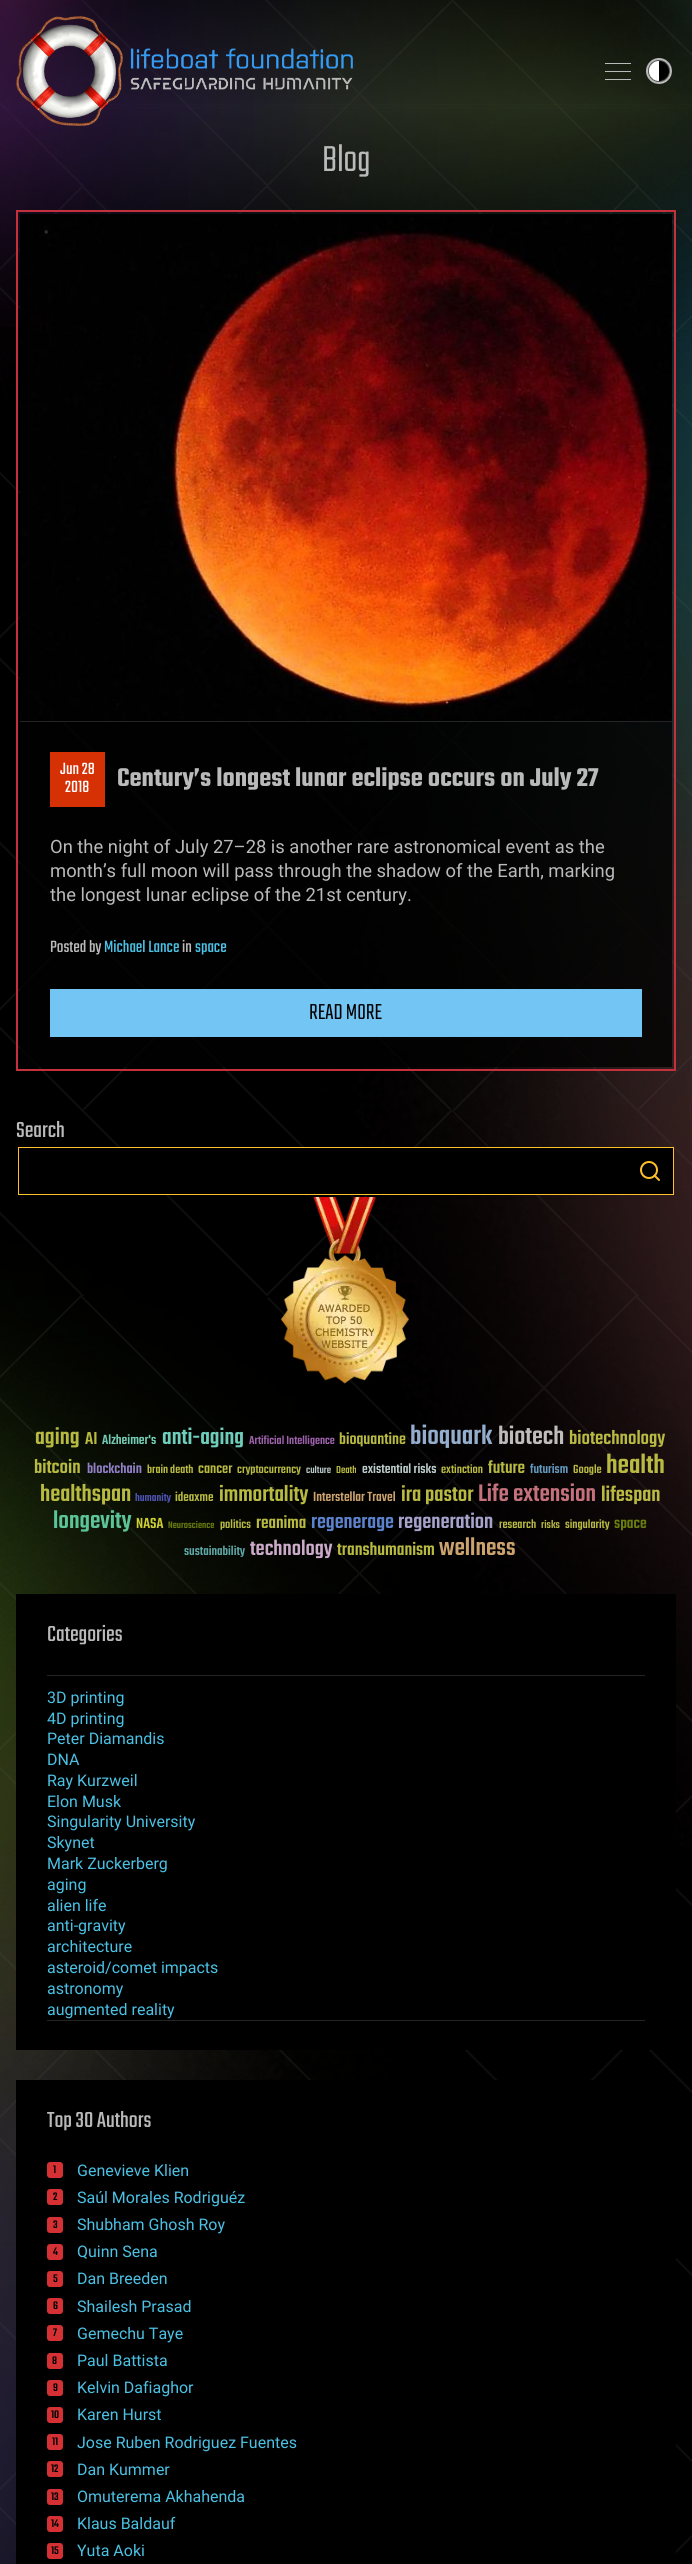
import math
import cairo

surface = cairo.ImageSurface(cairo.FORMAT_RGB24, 692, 2564)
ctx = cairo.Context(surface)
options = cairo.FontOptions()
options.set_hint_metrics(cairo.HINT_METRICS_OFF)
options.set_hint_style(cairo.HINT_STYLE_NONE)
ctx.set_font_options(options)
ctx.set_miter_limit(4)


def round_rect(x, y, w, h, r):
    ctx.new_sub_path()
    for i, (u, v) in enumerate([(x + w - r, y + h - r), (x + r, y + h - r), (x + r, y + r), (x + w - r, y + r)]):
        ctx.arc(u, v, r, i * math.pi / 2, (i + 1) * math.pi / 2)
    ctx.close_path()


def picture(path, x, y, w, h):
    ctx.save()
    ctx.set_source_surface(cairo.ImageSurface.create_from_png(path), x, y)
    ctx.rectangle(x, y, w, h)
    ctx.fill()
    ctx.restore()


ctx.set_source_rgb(0, 0, 0)
ctx.paint()
picture("img1.png", 0, 0, 692, 2564)
picture("img4.png", 0, 0, 692, 327)
picture("img2.png", 16, 16, 337, 110)
ctx.set_source_rgb(0.729, 0.729, 0.729)
ctx.rectangle(605, 71, 26, 1)
ctx.fill()
ctx.rectangle(605, 63, 26, 1)
ctx.fill()
ctx.rectangle(605, 79, 26, 1)
ctx.fill()
picture("img3.png", 646, 58, 26, 26)
ctx.select_font_face("Teko Light")
ctx.set_font_size(40)
ctx.move_to(322, 171)
ctx.show_text("Blog")
ctx.rectangle(17, 211, 658, 859)
ctx.set_source_rgb(0.769, 0.188, 0.231)
ctx.stroke()
ctx.set_source_rgb(0.141, 0.141, 0.141)
ctx.rectangle(20, 721, 652, 1)
ctx.fill()
picture("img5.png", 20, 214, 652, 507)
ctx.set_source_rgba(0.008, 0.008, 0.008, 0.8)
ctx.rectangle(20, 722, 652, 345)
ctx.fill()
ctx.set_source_rgb(0.835, 0.192, 0.02)
ctx.rectangle(50, 752, 55, 55)
ctx.fill()
ctx.select_font_face("Teko")
ctx.set_font_size(18)
ctx.set_source_rgb(1, 1, 1)
ctx.move_to(60, 774)
ctx.show_text("Jun 28")
ctx.move_to(65, 792)
ctx.show_text("2018")
ctx.select_font_face("Teko SemiBold")
ctx.set_font_size(28)
ctx.set_source_rgb(0.729, 0.729, 0.729)
ctx.move_to(117, 786)
ctx.show_text("Century’s longest lunar eclipse occurs on July 27")
ctx.select_font_face("Roboto")
ctx.set_font_size(18.4)
ctx.move_to(50, 853)
ctx.show_text("On the night of July 27–28 is another rare astronomical event as the")
ctx.move_to(50, 877)
ctx.show_text("month’s full moon will pass through the shadow of the Earth, marking")
ctx.move_to(50, 901)
ctx.show_text("the longest lunar eclipse of the 21st century.")
ctx.select_font_face("Teko")
ctx.set_font_size(18)
ctx.move_to(50, 952)
ctx.show_text("Posted by")
ctx.set_source_rgb(0.294, 0.757, 0.894)
ctx.move_to(104, 952)
ctx.show_text("Michael Lance")
ctx.set_source_rgb(0.729, 0.729, 0.729)
ctx.move_to(182, 952)
ctx.show_text("in")
ctx.set_source_rgb(0.294, 0.757, 0.894)
ctx.move_to(195, 952)
ctx.show_text("space")
ctx.set_source_rgb(0.451, 0.773, 0.957)
ctx.rectangle(50, 989, 592, 48)
ctx.fill()
ctx.select_font_face("Teko Light")
ctx.set_font_size(24)
ctx.set_source_rgb(0, 0, 0)
ctx.move_to(309, 1019)
ctx.show_text("READ MORE")
ctx.select_font_face("Teko")
ctx.set_source_rgb(0.729, 0.729, 0.729)
ctx.move_to(16, 1137)
ctx.show_text("Search")
ctx.set_source_rgb(0, 0, 0)
ctx.rectangle(119, 1148, 554, 46)
ctx.fill()
ctx.rectangle(18.5, 1147.5, 655, 47)
ctx.set_source_rgb(1, 0.757, 0.169)
ctx.set_line_width(1)
ctx.stroke()
ctx.arc(649, 1170, 8, 0, 2 * math.pi)
ctx.set_line_width(2)
ctx.stroke()
ctx.new_path()
ctx.move_to(659, 1180)
ctx.line_to(654.5, 1175.5)
ctx.set_line_cap(cairo.LINE_CAP_ROUND)
ctx.set_line_join(cairo.LINE_JOIN_ROUND)
ctx.stroke()
picture("img6.png", 280, 1197, 129, 187)
ctx.select_font_face("Teko Medium")
ctx.set_font_size(25)
ctx.set_source_rgb(0.722, 0.729, 0.259)
ctx.move_to(35, 1444)
ctx.show_text("aging")
ctx.set_font_size(19)
ctx.move_to(85, 1444)
ctx.show_text("AI")
ctx.set_font_size(14.5)
ctx.set_source_rgb(0.455, 0.796, 0.71)
ctx.move_to(102, 1444)
ctx.show_text("Alzheimer's")
ctx.set_font_size(24.5)
ctx.set_source_rgb(0.435, 0.804, 0.733)
ctx.move_to(162, 1444)
ctx.show_text("anti-aging")
ctx.set_font_size(12.75)
ctx.set_source_rgb(0.627, 0.384, 0.686)
ctx.move_to(249, 1444)
ctx.show_text("Artificial Intelligence")
ctx.set_font_size(17.5)
ctx.set_source_rgb(0.722, 0.729, 0.259)
ctx.move_to(339, 1444)
ctx.show_text("bioquantine")
ctx.set_font_size(29)
ctx.set_source_rgb(0.576, 0.678, 0.8)
ctx.move_to(410, 1444)
ctx.show_text("bioquark")
ctx.set_font_size(27.5)
ctx.set_source_rgb(0.753, 0.737, 0.741)
ctx.move_to(498, 1444)
ctx.show_text("biotech")
ctx.set_font_size(21)
ctx.set_source_rgb(0.722, 0.729, 0.259)
ctx.move_to(569, 1444)
ctx.show_text("biotechnology")
ctx.move_to(34, 1473)
ctx.show_text("bitcoin")
ctx.set_font_size(15.5)
ctx.set_source_rgb(0.573, 0.506, 0.788)
ctx.move_to(87, 1473)
ctx.show_text("blockchain")
ctx.set_font_size(12.75)
ctx.set_source_rgb(0.722, 0.729, 0.259)
ctx.move_to(147, 1473)
ctx.show_text("brain death")
ctx.set_font_size(15.5)
ctx.move_to(198, 1473)
ctx.show_text("cancer")
ctx.set_font_size(13)
ctx.move_to(237, 1473)
ctx.show_text("cryptocurrency")
ctx.set_font_size(11)
ctx.set_source_rgb(0.733, 0.792, 0.792)
ctx.move_to(306, 1473)
ctx.show_text("culture")
ctx.set_source_rgb(0.722, 0.729, 0.259)
ctx.move_to(336, 1473)
ctx.show_text("Death")
ctx.set_font_size(14.5)
ctx.set_source_rgb(0.733, 0.792, 0.792)
ctx.move_to(362, 1473)
ctx.show_text("existential risks")
ctx.set_font_size(13)
ctx.set_source_rgb(0.722, 0.729, 0.259)
ctx.move_to(441, 1473)
ctx.show_text("extinction")
ctx.set_font_size(19)
ctx.move_to(488, 1473)
ctx.show_text("future")
ctx.set_font_size(14)
ctx.set_source_rgb(0.388, 0.608, 0.753)
ctx.move_to(530, 1473)
ctx.show_text("futurism")
ctx.set_font_size(13)
ctx.set_source_rgb(0.722, 0.729, 0.259)
ctx.move_to(573, 1473)
ctx.show_text("Google")
ctx.set_font_size(29)
ctx.move_to(606, 1473)
ctx.show_text("health")
ctx.set_font_size(25.5)
ctx.move_to(40, 1501)
ctx.show_text("healthspan")
ctx.set_font_size(12)
ctx.set_source_rgb(0.314, 0.333, 0.725)
ctx.move_to(135, 1501)
ctx.show_text("humanity")
ctx.set_font_size(14)
ctx.set_source_rgb(0.722, 0.729, 0.259)
ctx.move_to(175, 1501)
ctx.show_text("ideaxme")
ctx.set_font_size(24)
ctx.move_to(219, 1501)
ctx.show_text("immortality")
ctx.set_font_size(14.5)
ctx.set_source_rgb(0.8, 0.639, 0.431)
ctx.move_to(313, 1501)
ctx.show_text("Interstellar Travel")
ctx.set_font_size(23.5)
ctx.set_source_rgb(0.722, 0.729, 0.259)
ctx.move_to(401, 1501)
ctx.show_text("ira pastor")
ctx.set_font_size(26.25)
ctx.set_source_rgb(0.773, 0.443, 0.486)
ctx.move_to(478, 1501)
ctx.show_text("Life extension")
ctx.set_font_size(23)
ctx.set_source_rgb(0.722, 0.729, 0.259)
ctx.move_to(601, 1501)
ctx.show_text("lifespan")
ctx.set_font_size(26.5)
ctx.set_source_rgb(0.357, 0.773, 0.6)
ctx.move_to(53, 1528)
ctx.show_text("longevity")
ctx.set_font_size(16)
ctx.set_source_rgb(0.808, 0.812, 0.188)
ctx.move_to(136, 1528)
ctx.show_text("NASA")
ctx.set_font_size(10.5)
ctx.set_source_rgb(0.42, 0.494, 0.055)
ctx.move_to(168, 1528)
ctx.show_text("Neuroscience")
ctx.set_font_size(13)
ctx.set_source_rgb(0.722, 0.729, 0.259)
ctx.move_to(220, 1528)
ctx.show_text("politics")
ctx.set_font_size(19)
ctx.move_to(256, 1528)
ctx.show_text("reanima")
ctx.set_font_size(22.5)
ctx.set_source_rgb(0.357, 0.51, 0.8)
ctx.move_to(311, 1528)
ctx.show_text("regenerage")
ctx.set_font_size(23)
ctx.set_source_rgb(0.651, 0.635, 0.8)
ctx.move_to(398, 1528)
ctx.show_text("regeneration")
ctx.set_font_size(13)
ctx.set_source_rgb(0.722, 0.729, 0.259)
ctx.move_to(499, 1528)
ctx.show_text("research")
ctx.set_font_size(12)
ctx.move_to(541, 1528)
ctx.show_text("risks")
ctx.set_font_size(13)
ctx.move_to(565, 1528)
ctx.show_text("singularity")
ctx.set_font_size(17)
ctx.set_source_rgb(0.42, 0.494, 0.055)
ctx.move_to(614, 1528)
ctx.show_text("space")
ctx.set_font_size(14)
ctx.set_source_rgb(0.365, 0.655, 0.655)
ctx.move_to(184, 1555)
ctx.show_text("sustainability")
ctx.set_font_size(23)
ctx.set_source_rgb(0.796, 0.667, 0.792)
ctx.move_to(250, 1555)
ctx.show_text("technology")
ctx.set_font_size(19.5)
ctx.set_source_rgb(0.722, 0.729, 0.259)
ctx.move_to(337, 1555)
ctx.show_text("transhumanism")
ctx.set_font_size(26.5)
ctx.set_source_rgb(0.8, 0.639, 0.431)
ctx.move_to(439, 1555)
ctx.show_text("wellness")
ctx.set_source_rgb(0, 0, 0)
ctx.rectangle(16, 1594, 660, 456)
ctx.fill()
ctx.select_font_face("Teko")
ctx.set_font_size(24)
ctx.set_source_rgb(0.729, 0.729, 0.729)
ctx.move_to(47, 1641)
ctx.show_text("Categories")
ctx.set_source_rgb(0.141, 0.141, 0.141)
ctx.rectangle(47, 1675, 598, 1)
ctx.fill()
ctx.rectangle(47, 2020, 598, 1)
ctx.fill()
ctx.select_font_face("Roboto")
ctx.set_font_size(16)
ctx.set_source_rgb(0.294, 0.757, 0.894)
ctx.move_to(47, 1703)
ctx.show_text("3D printing")
ctx.move_to(47, 1724)
ctx.show_text("4D printing")
ctx.move_to(47, 1744)
ctx.show_text("Peter Diamandis")
ctx.move_to(47, 1765)
ctx.show_text("DNA")
ctx.move_to(47, 1786)
ctx.show_text("Ray Kurzweil")
ctx.move_to(47, 1807)
ctx.show_text("Elon Musk")
ctx.move_to(47, 1827)
ctx.show_text("Singularity University")
ctx.move_to(47, 1848)
ctx.show_text("Skynet")
ctx.move_to(47, 1869)
ctx.show_text("Mark Zuckerberg")
ctx.move_to(47, 1890)
ctx.show_text("aging")
ctx.move_to(47, 1911)
ctx.show_text("alien life")
ctx.move_to(47, 1931)
ctx.show_text("anti-gravity")
ctx.move_to(47, 1952)
ctx.show_text("architecture")
ctx.move_to(47, 1973)
ctx.show_text("asteroid/comet impacts")
ctx.move_to(47, 1994)
ctx.show_text("astronomy")
ctx.move_to(47, 2015)
ctx.show_text("augmented reality")
ctx.set_source_rgb(0, 0, 0)
ctx.rectangle(16, 2080, 660, 484)
ctx.fill()
ctx.select_font_face("Teko")
ctx.set_font_size(24)
ctx.set_source_rgb(0.729, 0.729, 0.729)
ctx.move_to(47, 2127)
ctx.show_text("Top 30 Authors")
ctx.set_source_rgb(0.835, 0.192, 0.204)
round_rect(47, 2162, 16, 16, 3)
ctx.fill()
ctx.select_font_face("Teko Medium")
ctx.set_font_size(12)
ctx.set_source_rgb(0, 0, 0)
ctx.move_to(53, 2173)
ctx.show_text("1")
ctx.select_font_face("Roboto")
ctx.set_font_size(16)
ctx.set_source_rgb(0.294, 0.757, 0.894)
ctx.move_to(77, 2176)
ctx.show_text("Genevieve Klien")
ctx.set_source_rgb(0.835, 0.192, 0.204)
round_rect(47, 2189, 16, 16, 3)
ctx.fill()
ctx.select_font_face("Teko Medium")
ctx.set_font_size(12)
ctx.set_source_rgb(0, 0, 0)
ctx.move_to(53, 2200)
ctx.show_text("2")
ctx.select_font_face("Roboto")
ctx.set_font_size(16)
ctx.set_source_rgb(0.294, 0.757, 0.894)
ctx.move_to(77, 2203)
ctx.show_text("Saúl Morales Rodriguéz")
ctx.set_source_rgb(0.835, 0.192, 0.204)
round_rect(47, 2217, 16, 16, 3)
ctx.fill()
ctx.select_font_face("Teko Medium")
ctx.set_font_size(12)
ctx.set_source_rgb(0, 0, 0)
ctx.move_to(53, 2228)
ctx.show_text("3")
ctx.select_font_face("Roboto")
ctx.set_font_size(16)
ctx.set_source_rgb(0.294, 0.757, 0.894)
ctx.move_to(77, 2230)
ctx.show_text("Shubham Ghosh Roy")
ctx.set_source_rgb(0.835, 0.192, 0.204)
round_rect(47, 2244, 16, 16, 3)
ctx.fill()
ctx.select_font_face("Teko Medium")
ctx.set_font_size(12)
ctx.set_source_rgb(0, 0, 0)
ctx.move_to(53, 2255)
ctx.show_text("4")
ctx.select_font_face("Roboto")
ctx.set_font_size(16)
ctx.set_source_rgb(0.294, 0.757, 0.894)
ctx.move_to(77, 2257)
ctx.show_text("Quinn Sena")
ctx.set_source_rgb(0.835, 0.192, 0.204)
round_rect(47, 2271, 16, 16, 3)
ctx.fill()
ctx.select_font_face("Teko Medium")
ctx.set_font_size(12)
ctx.set_source_rgb(0, 0, 0)
ctx.move_to(53, 2282)
ctx.show_text("5")
ctx.select_font_face("Roboto")
ctx.set_font_size(16)
ctx.set_source_rgb(0.294, 0.757, 0.894)
ctx.move_to(77, 2284)
ctx.show_text("Dan Breeden")
ctx.set_source_rgb(0.835, 0.192, 0.204)
round_rect(47, 2298, 16, 16, 3)
ctx.fill()
ctx.select_font_face("Teko Medium")
ctx.set_font_size(12)
ctx.set_source_rgb(0, 0, 0)
ctx.move_to(53, 2309)
ctx.show_text("6")
ctx.select_font_face("Roboto")
ctx.set_font_size(16)
ctx.set_source_rgb(0.294, 0.757, 0.894)
ctx.move_to(77, 2312)
ctx.show_text("Shailesh Prasad")
ctx.set_source_rgb(0.835, 0.192, 0.204)
round_rect(47, 2325, 16, 16, 3)
ctx.fill()
ctx.select_font_face("Teko Medium")
ctx.set_font_size(12)
ctx.set_source_rgb(0, 0, 0)
ctx.move_to(53, 2336)
ctx.show_text("7")
ctx.select_font_face("Roboto")
ctx.set_font_size(16)
ctx.set_source_rgb(0.294, 0.757, 0.894)
ctx.move_to(77, 2339)
ctx.show_text("Gemechu Taye")
ctx.set_source_rgb(0.835, 0.192, 0.204)
round_rect(47, 2353, 16, 16, 3)
ctx.fill()
ctx.select_font_face("Teko Medium")
ctx.set_font_size(12)
ctx.set_source_rgb(0, 0, 0)
ctx.move_to(52, 2364)
ctx.show_text("8")
ctx.select_font_face("Roboto")
ctx.set_font_size(16)
ctx.set_source_rgb(0.294, 0.757, 0.894)
ctx.move_to(77, 2366)
ctx.show_text("Paul Battista")
ctx.set_source_rgb(0.835, 0.192, 0.204)
round_rect(47, 2380, 16, 16, 3)
ctx.fill()
ctx.select_font_face("Teko Medium")
ctx.set_font_size(12)
ctx.set_source_rgb(0, 0, 0)
ctx.move_to(53, 2391)
ctx.show_text("9")
ctx.select_font_face("Roboto")
ctx.set_font_size(16)
ctx.set_source_rgb(0.294, 0.757, 0.894)
ctx.move_to(77, 2393)
ctx.show_text("Kelvin Dafiaghor")
ctx.set_source_rgb(0.835, 0.192, 0.204)
round_rect(47, 2407, 16, 16, 3)
ctx.fill()
ctx.select_font_face("Teko Medium")
ctx.set_font_size(12)
ctx.set_source_rgb(0, 0, 0)
ctx.move_to(51, 2418)
ctx.show_text("10")
ctx.select_font_face("Roboto")
ctx.set_font_size(16)
ctx.set_source_rgb(0.294, 0.757, 0.894)
ctx.move_to(77, 2420)
ctx.show_text("Karen Hurst")
ctx.set_source_rgb(0.835, 0.192, 0.204)
round_rect(47, 2434, 16, 16, 3)
ctx.fill()
ctx.select_font_face("Teko Medium")
ctx.set_font_size(12)
ctx.set_source_rgb(0, 0, 0)
ctx.move_to(52, 2445)
ctx.show_text("11")
ctx.select_font_face("Roboto")
ctx.set_font_size(16)
ctx.set_source_rgb(0.294, 0.757, 0.894)
ctx.move_to(77, 2448)
ctx.show_text("Jose Ruben Rodriguez Fuentes")
ctx.set_source_rgb(0.835, 0.192, 0.204)
round_rect(47, 2461, 16, 16, 3)
ctx.fill()
ctx.select_font_face("Teko Medium")
ctx.set_font_size(12)
ctx.set_source_rgb(0, 0, 0)
ctx.move_to(51, 2472)
ctx.show_text("12")
ctx.select_font_face("Roboto")
ctx.set_font_size(16)
ctx.set_source_rgb(0.294, 0.757, 0.894)
ctx.move_to(77, 2475)
ctx.show_text("Dan Kummer")
ctx.set_source_rgb(0.835, 0.192, 0.204)
round_rect(47, 2489, 16, 16, 3)
ctx.fill()
ctx.select_font_face("Teko Medium")
ctx.set_font_size(12)
ctx.set_source_rgb(0, 0, 0)
ctx.move_to(51, 2500)
ctx.show_text("13")
ctx.select_font_face("Roboto")
ctx.set_font_size(16)
ctx.set_source_rgb(0.294, 0.757, 0.894)
ctx.move_to(77, 2502)
ctx.show_text("Omuterema Akhahenda")
ctx.set_source_rgb(0.835, 0.192, 0.204)
round_rect(47, 2516, 16, 16, 3)
ctx.fill()
ctx.select_font_face("Teko Medium")
ctx.set_font_size(12)
ctx.set_source_rgb(0, 0, 0)
ctx.move_to(51, 2527)
ctx.show_text("14")
ctx.select_font_face("Roboto")
ctx.set_font_size(16)
ctx.set_source_rgb(0.294, 0.757, 0.894)
ctx.move_to(77, 2529)
ctx.show_text("Klaus Baldauf")
ctx.set_source_rgb(0.835, 0.192, 0.204)
round_rect(47, 2543, 16, 16, 3)
ctx.fill()
ctx.select_font_face("Teko Medium")
ctx.set_font_size(12)
ctx.set_source_rgb(0, 0, 0)
ctx.move_to(51, 2554)
ctx.show_text("15")
ctx.select_font_face("Roboto")
ctx.set_font_size(16)
ctx.set_source_rgb(0.294, 0.757, 0.894)
ctx.move_to(77, 2556)
ctx.show_text("Yuta Aoki")
surface.write_to_png("page.png")
